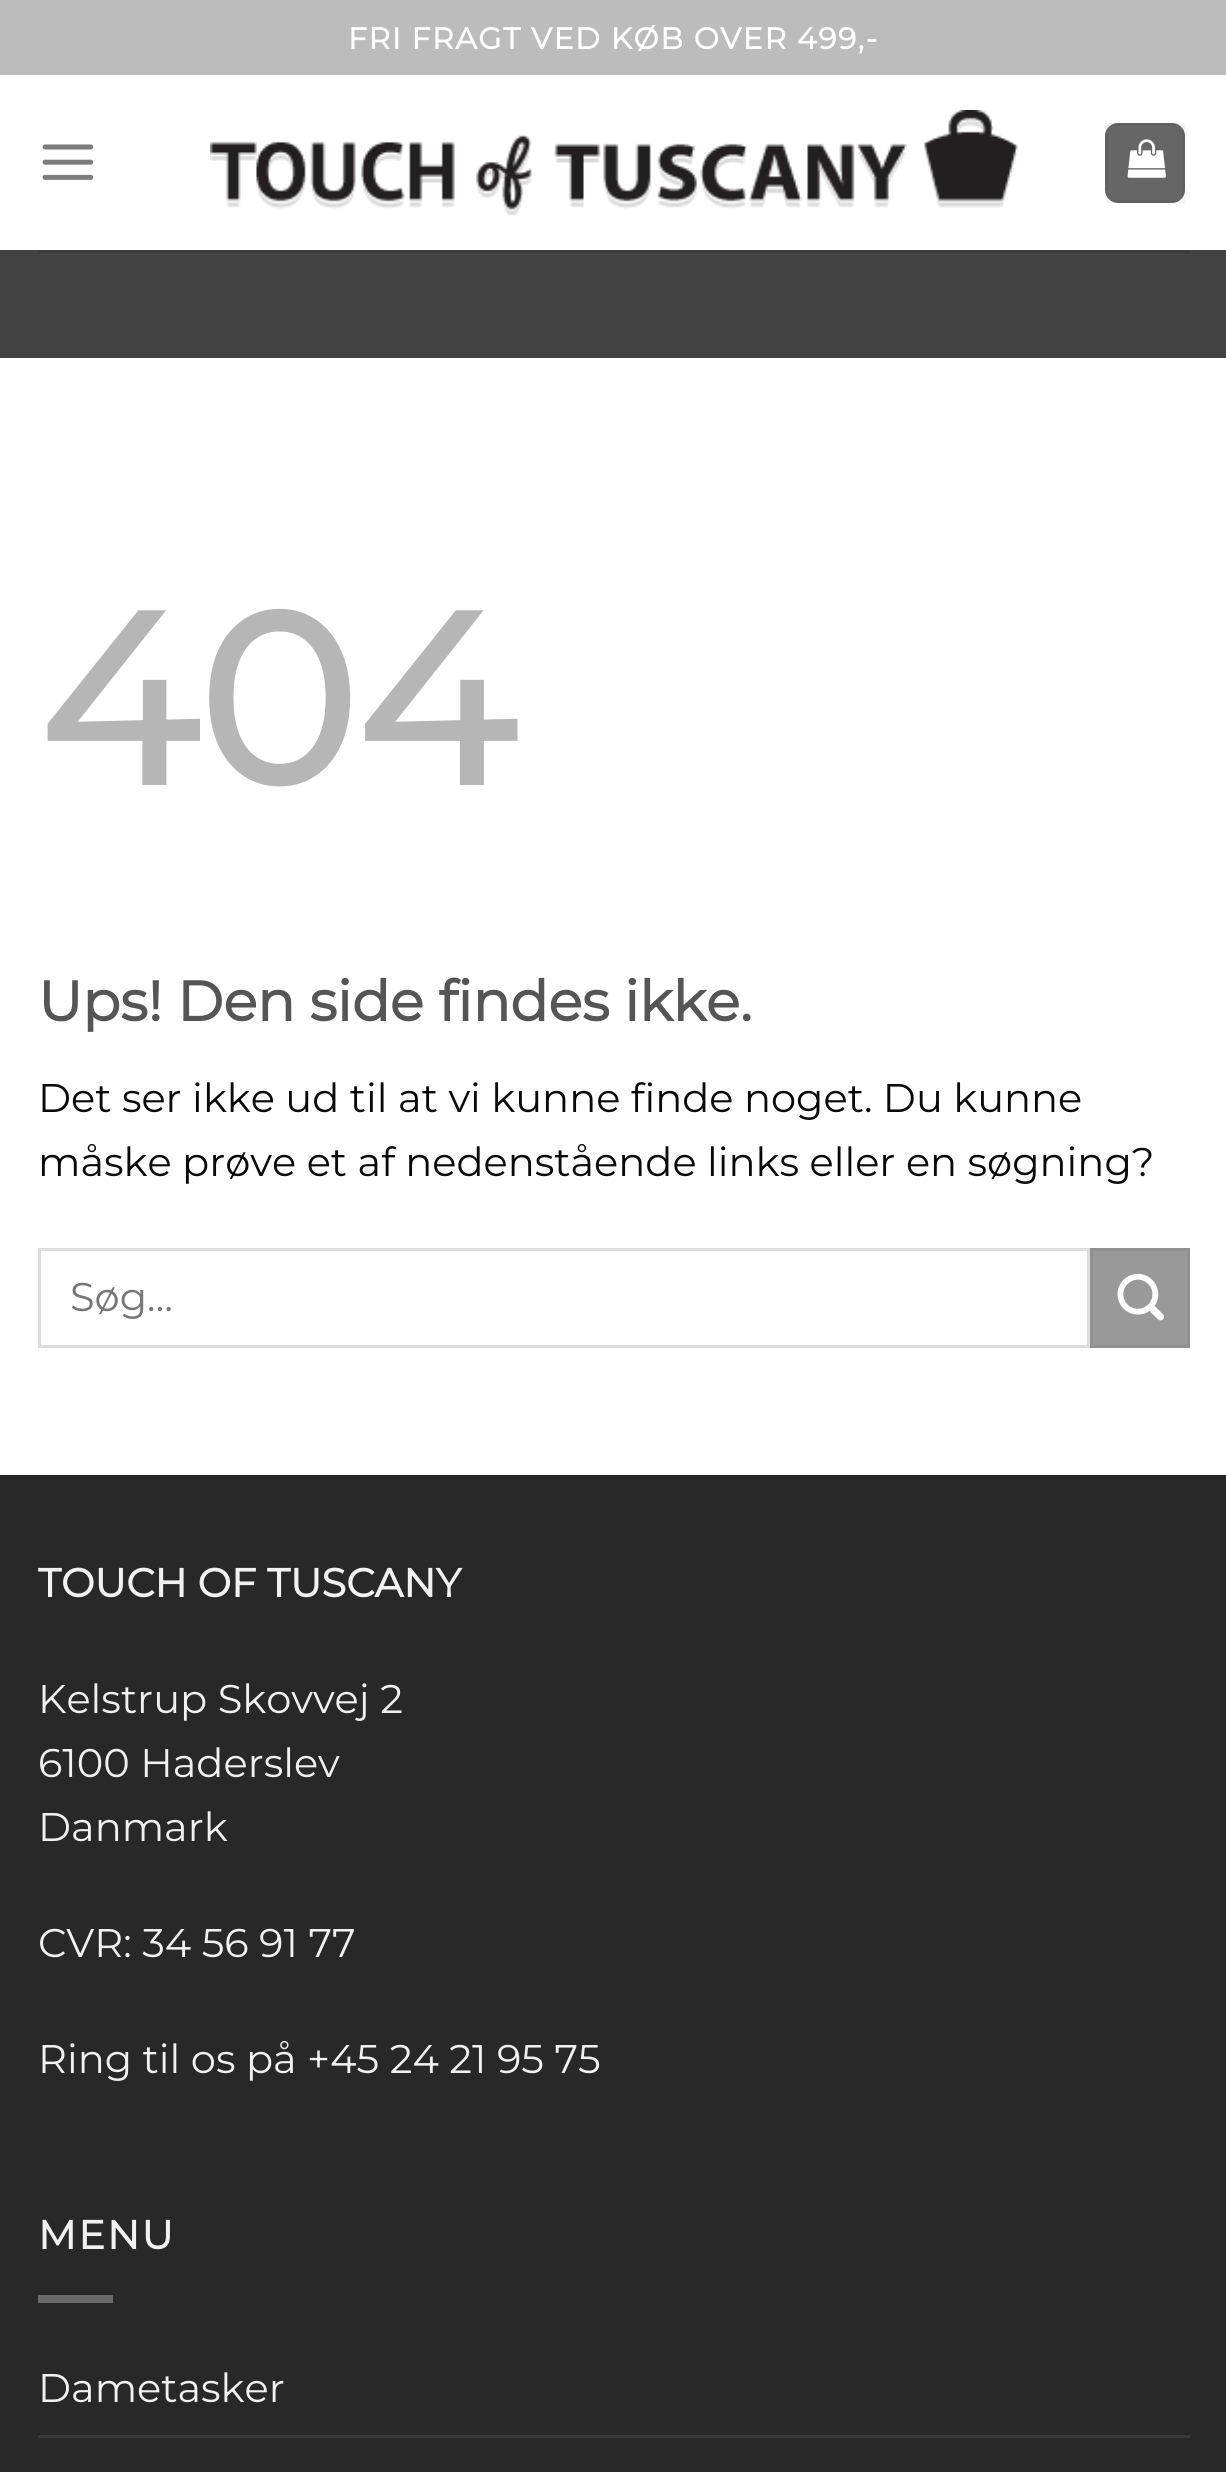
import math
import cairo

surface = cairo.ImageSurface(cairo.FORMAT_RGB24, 1226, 2472)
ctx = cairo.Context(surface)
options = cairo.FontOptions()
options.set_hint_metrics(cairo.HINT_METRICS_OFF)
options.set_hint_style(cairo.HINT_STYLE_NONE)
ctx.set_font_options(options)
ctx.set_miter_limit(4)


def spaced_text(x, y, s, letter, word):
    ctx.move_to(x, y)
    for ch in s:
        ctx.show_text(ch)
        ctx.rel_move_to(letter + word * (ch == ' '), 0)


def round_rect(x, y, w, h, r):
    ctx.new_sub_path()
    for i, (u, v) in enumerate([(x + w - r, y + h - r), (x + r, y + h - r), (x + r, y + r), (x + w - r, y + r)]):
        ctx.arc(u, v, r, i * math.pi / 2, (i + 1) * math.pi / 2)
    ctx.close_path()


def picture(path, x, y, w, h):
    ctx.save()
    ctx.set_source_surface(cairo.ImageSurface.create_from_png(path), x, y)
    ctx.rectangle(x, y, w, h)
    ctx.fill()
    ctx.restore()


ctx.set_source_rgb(1, 1, 1)
ctx.paint()
ctx.set_source_rgb(0.737, 0.737, 0.737)
ctx.rectangle(0, 0, 1226, 75)
ctx.fill()
ctx.select_font_face("Montserrat", cairo.FONT_SLANT_NORMAL, cairo.FONT_WEIGHT_BOLD)
ctx.set_font_size(30)
ctx.set_source_rgb(1, 1, 1)
spaced_text(348, 49, "FRI FRAGT VED KØB OVER 499,-", 1.5, 0)
picture("img1.png", 42, 144, 52, 36)
picture("img2.png", 210, 110, 808, 105)
ctx.set_source_rgb(0.4, 0.4, 0.4)
round_rect(1105, 123, 80, 80, 13)
ctx.fill()
ctx.rectangle(1106.5, 124.5, 77, 77)
ctx.set_source_rgba(0, 0, 0, 0.05)
ctx.set_line_width(3)
ctx.stroke()
picture("img3.png", 1127, 139, 39, 39)
ctx.set_source_rgb(0.259, 0.259, 0.259)
ctx.rectangle(0, 250, 1226, 108)
ctx.fill()
ctx.set_source_rgb(0.235, 0.235, 0.235)
ctx.rectangle(38, 250, 1152, 3)
ctx.fill()
ctx.set_font_size(240)
ctx.set_source_rgb(0.714, 0.714, 0.714)
ctx.move_to(38, 785)
ctx.show_text("404")
ctx.set_font_size(56)
ctx.set_source_rgb(0.333, 0.333, 0.333)
ctx.move_to(38, 1021)
ctx.show_text("Ups! Den side findes ikke.")
ctx.select_font_face("Montserrat Thin")
ctx.set_font_size(40)
ctx.set_source_rgb(0.039, 0.039, 0.039)
ctx.move_to(38, 1112)
ctx.show_text("Det ser ikke ud til at vi kunne finde noget. Du kunne")
ctx.move_to(38, 1176)
ctx.show_text("måske prøve et af nedenstående links eller en søgning?")
ctx.rectangle(39.5, 1249.5, 1049, 97)
ctx.set_source_rgb(0.867, 0.867, 0.867)
ctx.stroke()
ctx.set_source_rgb(0.459, 0.459, 0.459)
ctx.move_to(70, 1311)
ctx.show_text("Søg…")
ctx.set_source_rgb(0.6, 0.6, 0.6)
ctx.rectangle(1091.5, 1249.5, 97, 97)
ctx.fill_preserve()
ctx.set_source_rgb(0.569, 0.569, 0.569)
ctx.stroke()
picture("img4.png", 1117, 1273, 47, 48)
ctx.set_source_rgb(0.157, 0.157, 0.157)
ctx.rectangle(0, 1478, 1226, 994)
ctx.fill()
ctx.set_source_rgb(0.149, 0.149, 0.149)
ctx.rectangle(0, 1475, 1226, 3)
ctx.fill()
ctx.select_font_face("Montserrat", cairo.FONT_SLANT_NORMAL, cairo.FONT_WEIGHT_BOLD)
ctx.set_source_rgb(0.945, 0.945, 0.945)
ctx.move_to(38, 1597)
ctx.show_text("TOUCH OF TUSCANY")
ctx.select_font_face("Montserrat Thin")
ctx.move_to(38, 1713)
ctx.show_text("Kelstrup Skovvej 2")
ctx.move_to(38, 1777)
ctx.show_text("6100 Haderslev")
ctx.move_to(38, 1841)
ctx.show_text("Danmark")
ctx.move_to(38, 1957)
ctx.show_text("CVR: 34 56 91 77")
ctx.move_to(38, 2073)
ctx.show_text("Ring til os på +45 24 21 95 75")
ctx.select_font_face("Montserrat", cairo.FONT_SLANT_NORMAL, cairo.FONT_WEIGHT_BOLD)
spaced_text(38, 2249, "MENU", 2, 0)
ctx.set_source_rgb(0.412, 0.412, 0.412)
ctx.rectangle(38, 2295, 75, 8)
ctx.fill()
ctx.select_font_face("Montserrat Thin")
ctx.set_source_rgb(0.945, 0.945, 0.945)
ctx.move_to(38, 2402)
ctx.show_text("Dametasker")
ctx.set_source_rgb(0.224, 0.224, 0.224)
ctx.rectangle(38, 2435, 1152, 3)
ctx.fill()
surface.write_to_png("page.png")
